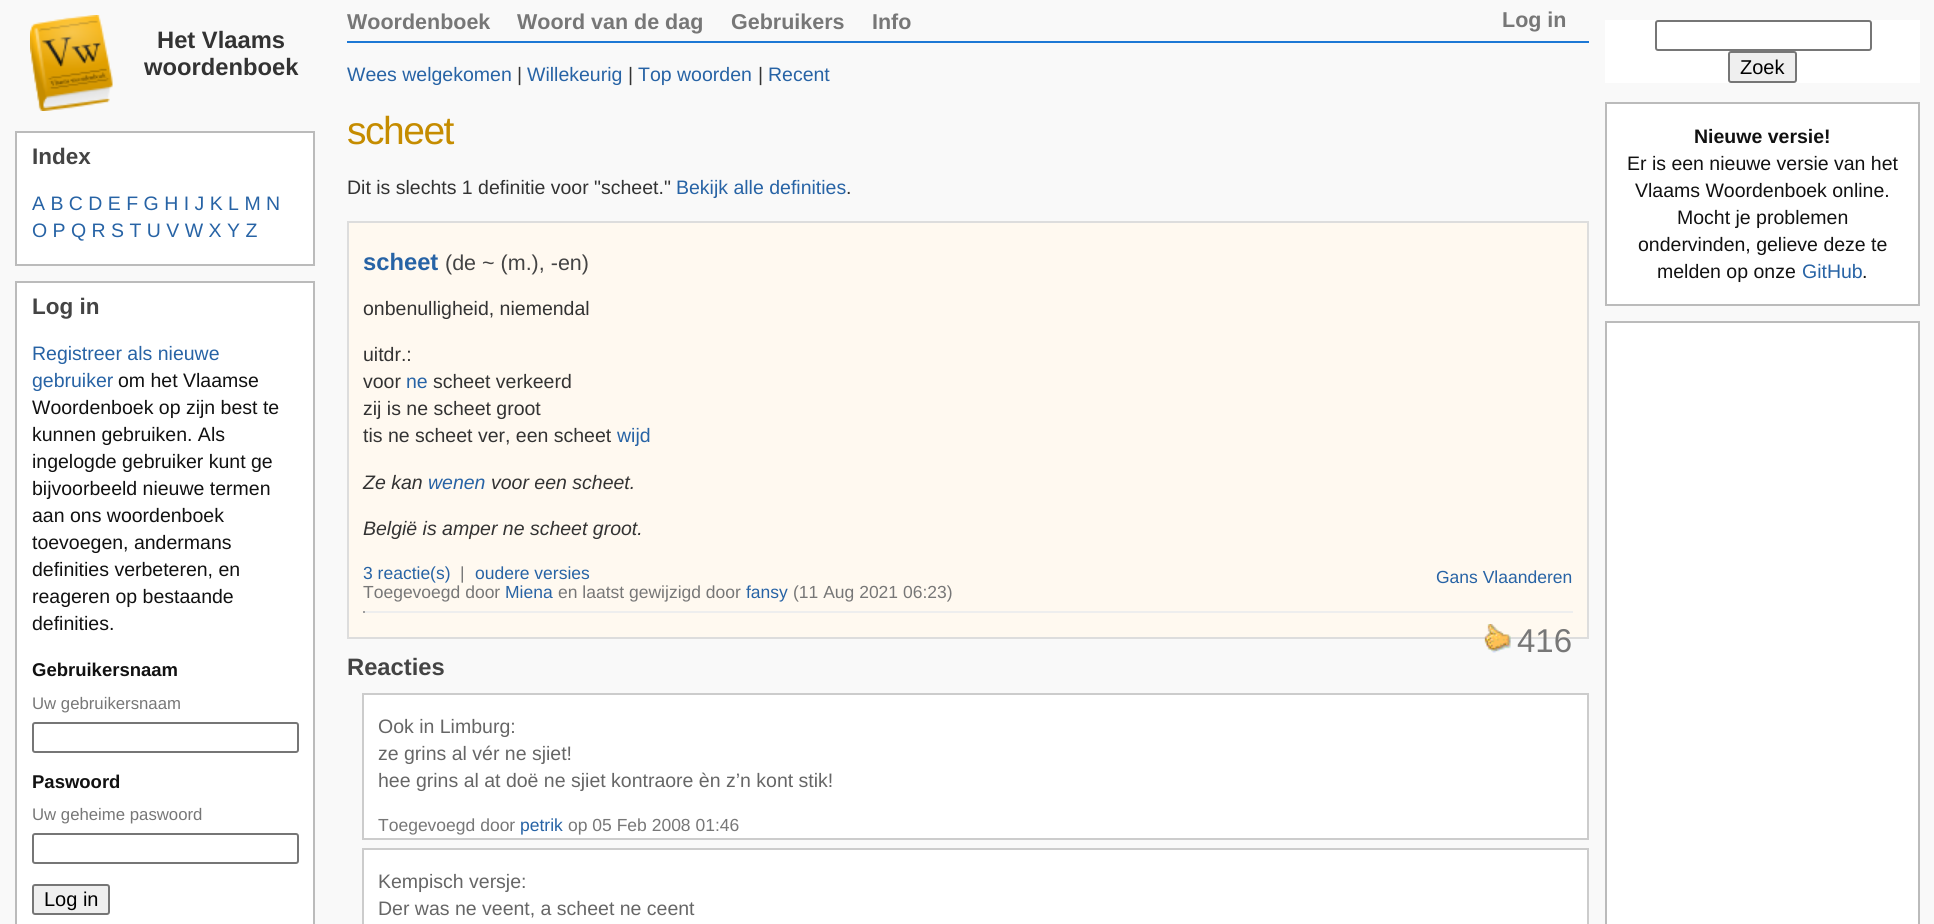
import math
import cairo

surface = cairo.ImageSurface(cairo.FORMAT_RGB24, 1934, 924)
ctx = cairo.Context(surface)
options = cairo.FontOptions()
options.set_hint_metrics(cairo.HINT_METRICS_OFF)
options.set_hint_style(cairo.HINT_STYLE_NONE)
ctx.set_font_options(options)
ctx.set_miter_limit(4)


def spaced_text(x, y, s, letter, word):
    ctx.move_to(x, y)
    for ch in s:
        ctx.show_text(ch)
        ctx.rel_move_to(letter + word * (ch == ' '), 0)


def round_rect(x, y, w, h, r):
    ctx.new_sub_path()
    for i, (u, v) in enumerate([(x + w - r, y + h - r), (x + r, y + h - r), (x + r, y + r), (x + w - r, y + r)]):
        ctx.arc(u, v, r, i * math.pi / 2, (i + 1) * math.pi / 2)
    ctx.close_path()


def picture(path, x, y, w, h):
    ctx.save()
    ctx.set_source_surface(cairo.ImageSurface.create_from_png(path), x, y)
    ctx.rectangle(x, y, w, h)
    ctx.fill()
    ctx.restore()


ctx.set_source_rgb(0.973, 0.973, 0.973)
ctx.paint()
picture("img1.png", 30, 15, 83, 96)
ctx.select_font_face("Liberation Sans", cairo.FONT_SLANT_NORMAL, cairo.FONT_WEIGHT_BOLD)
ctx.set_font_size(23.75)
ctx.set_source_rgb(0.2, 0.2, 0.2)
ctx.move_to(157, 48)
ctx.show_text("Het Vlaams")
ctx.move_to(144, 75)
ctx.show_text("woordenboek")
ctx.set_source_rgb(1, 1, 1)
ctx.rectangle(16, 132, 298, 133)
ctx.fill_preserve()
ctx.set_source_rgb(0.733, 0.733, 0.733)
ctx.stroke()
ctx.set_font_size(22.5)
ctx.set_source_rgb(0.267, 0.267, 0.267)
ctx.move_to(32, 164)
ctx.show_text("Index")
ctx.select_font_face("Liberation Sans")
ctx.set_font_size(19.5)
ctx.set_source_rgb(0.153, 0.388, 0.647)
ctx.move_to(32, 210)
ctx.show_text("A B C D E F G H I J K L M N")
ctx.move_to(32, 237)
ctx.show_text("O P Q R S T U V W X Y Z")
ctx.set_source_rgb(1, 1, 1)
ctx.rectangle(16, 282, 298, 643)
ctx.fill_preserve()
ctx.set_source_rgb(0.733, 0.733, 0.733)
ctx.stroke()
ctx.select_font_face("Liberation Sans", cairo.FONT_SLANT_NORMAL, cairo.FONT_WEIGHT_BOLD)
ctx.set_font_size(22.5)
ctx.set_source_rgb(0.267, 0.267, 0.267)
ctx.move_to(32, 314)
ctx.show_text("Log in")
ctx.select_font_face("Liberation Sans")
ctx.set_font_size(19.5)
ctx.set_source_rgb(0.153, 0.388, 0.647)
ctx.move_to(32, 360)
ctx.show_text("Registreer als nieuwe")
ctx.move_to(32, 387)
ctx.show_text("gebruiker")
ctx.set_source_rgb(0.067, 0.067, 0.067)
ctx.move_to(118, 387)
ctx.show_text("om het Vlaamse")
ctx.move_to(32, 414)
ctx.show_text("Woordenboek op zijn best te")
ctx.move_to(32, 441)
ctx.show_text("kunnen gebruiken. Als")
ctx.move_to(32, 468)
ctx.show_text("ingelogde gebruiker kunt ge")
ctx.move_to(32, 495)
ctx.show_text("bijvoorbeeld nieuwe termen")
ctx.move_to(32, 522)
ctx.show_text("aan ons woordenboek")
ctx.move_to(32, 549)
ctx.show_text("toevoegen, andermans")
ctx.move_to(32, 576)
ctx.show_text("definities verbeteren, en")
ctx.move_to(32, 603)
ctx.show_text("reageren op bestaande")
ctx.move_to(32, 630)
ctx.show_text("definities.")
ctx.select_font_face("Liberation Sans", cairo.FONT_SLANT_NORMAL, cairo.FONT_WEIGHT_BOLD)
ctx.set_font_size(18.5)
ctx.move_to(32, 676)
ctx.show_text("Gebruikersnaam")
ctx.select_font_face("Liberation Sans")
ctx.set_font_size(16.75)
ctx.set_source_rgb(0.467, 0.467, 0.467)
ctx.move_to(32, 709)
ctx.show_text("Uw gebruikersnaam")
round_rect(33, 723, 265, 29, 2)
ctx.set_source_rgb(0.463, 0.463, 0.463)
ctx.stroke()
ctx.select_font_face("Liberation Sans", cairo.FONT_SLANT_NORMAL, cairo.FONT_WEIGHT_BOLD)
ctx.set_font_size(18.5)
ctx.set_source_rgb(0.067, 0.067, 0.067)
ctx.move_to(32, 788)
ctx.show_text("Paswoord")
ctx.select_font_face("Liberation Sans")
ctx.set_font_size(16.75)
ctx.set_source_rgb(0.467, 0.467, 0.467)
ctx.move_to(32, 820)
ctx.show_text("Uw geheime paswoord")
round_rect(33, 834, 265, 29, 2)
ctx.set_source_rgb(0.463, 0.463, 0.463)
ctx.stroke()
ctx.set_source_rgb(0.937, 0.937, 0.937)
round_rect(33, 885, 76, 29, 2)
ctx.fill_preserve()
ctx.set_source_rgb(0.463, 0.463, 0.463)
ctx.stroke()
ctx.set_font_size(20)
ctx.set_source_rgb(0, 0, 0)
ctx.move_to(44, 906)
ctx.show_text("Log in")
ctx.set_source_rgb(0.114, 0.471, 0.835)
ctx.rectangle(347, 41, 1242, 2)
ctx.fill()
ctx.select_font_face("Liberation Sans", cairo.FONT_SLANT_NORMAL, cairo.FONT_WEIGHT_BOLD)
ctx.set_font_size(21.5)
ctx.set_source_rgb(0.467, 0.467, 0.467)
ctx.move_to(347, 29)
ctx.show_text("Woordenboek")
ctx.move_to(517, 29)
ctx.show_text("Woord van de dag")
ctx.move_to(731, 29)
ctx.show_text("Gebruikers")
ctx.move_to(872, 29)
ctx.show_text("Info")
ctx.move_to(1502, 27)
ctx.show_text("Log in")
ctx.select_font_face("Liberation Sans")
ctx.set_font_size(19.5)
ctx.set_source_rgb(0.153, 0.388, 0.647)
ctx.move_to(347, 81)
ctx.show_text("Wees welgekomen")
ctx.set_source_rgb(0.2, 0.2, 0.2)
ctx.move_to(517, 81)
ctx.show_text("|")
ctx.set_source_rgb(0.153, 0.388, 0.647)
ctx.move_to(527, 81)
ctx.show_text("Willekeurig")
ctx.set_source_rgb(0.2, 0.2, 0.2)
ctx.move_to(628, 81)
ctx.show_text("|")
ctx.set_source_rgb(0.153, 0.388, 0.647)
ctx.move_to(638, 81)
ctx.show_text("Top woorden")
ctx.set_source_rgb(0.2, 0.2, 0.2)
ctx.move_to(758, 81)
ctx.show_text("|")
ctx.set_source_rgb(0.153, 0.388, 0.647)
ctx.move_to(768, 81)
ctx.show_text("Recent")
ctx.set_font_size(39)
ctx.set_source_rgb(0.773, 0.549, 0)
spaced_text(347, 144, "scheet", -1.5, 0)
ctx.set_font_size(19.5)
ctx.set_source_rgb(0.2, 0.2, 0.2)
ctx.move_to(347, 194)
ctx.show_text("Dit is slechts 1 definitie voor \"scheet.\"")
ctx.set_source_rgb(0.153, 0.388, 0.647)
ctx.move_to(676, 194)
ctx.show_text("Bekijk alle definities")
ctx.set_source_rgb(0.2, 0.2, 0.2)
ctx.move_to(846, 194)
ctx.show_text(".")
ctx.set_source_rgb(1, 0.973, 0.941)
ctx.rectangle(348, 222, 1240, 416)
ctx.fill_preserve()
ctx.set_source_rgb(0.867, 0.867, 0.867)
ctx.stroke()
ctx.select_font_face("Liberation Sans", cairo.FONT_SLANT_NORMAL, cairo.FONT_WEIGHT_BOLD)
ctx.set_font_size(23.75)
ctx.set_source_rgb(0.153, 0.388, 0.647)
ctx.move_to(363, 270)
ctx.show_text("scheet")
ctx.select_font_face("Liberation Sans")
ctx.set_font_size(21.5)
ctx.set_source_rgb(0.267, 0.267, 0.267)
ctx.move_to(445, 270)
ctx.show_text("(de ~ (m.), -en)")
ctx.set_font_size(19.5)
ctx.set_source_rgb(0.2, 0.2, 0.2)
ctx.move_to(363, 315)
ctx.show_text("onbenulligheid, niemendal")
ctx.move_to(363, 361)
ctx.show_text("uitdr.:")
ctx.move_to(363, 388)
ctx.show_text("voor")
ctx.set_source_rgb(0.153, 0.388, 0.647)
ctx.move_to(406, 388)
ctx.show_text("ne")
ctx.set_source_rgb(0.2, 0.2, 0.2)
ctx.move_to(433, 388)
ctx.show_text("scheet verkeerd")
ctx.move_to(363, 415)
ctx.show_text("zij is ne scheet groot")
ctx.move_to(363, 442)
ctx.show_text("tis ne scheet ver, een scheet")
ctx.set_source_rgb(0.153, 0.388, 0.647)
ctx.move_to(617, 442)
ctx.show_text("wijd")
ctx.select_font_face("Liberation Sans", cairo.FONT_SLANT_ITALIC)
ctx.set_source_rgb(0.2, 0.2, 0.2)
ctx.move_to(363, 489)
ctx.show_text("Ze kan")
ctx.set_source_rgb(0.153, 0.388, 0.647)
ctx.move_to(428, 489)
ctx.show_text("wenen")
ctx.set_source_rgb(0.2, 0.2, 0.2)
ctx.move_to(491, 489)
ctx.show_text("voor een scheet.")
ctx.move_to(363, 535)
ctx.show_text("België is amper ne scheet groot.")
ctx.select_font_face("Liberation Sans")
ctx.set_font_size(17.5)
ctx.set_source_rgb(0.153, 0.388, 0.647)
ctx.move_to(363, 579)
ctx.show_text("3 reactie(s)")
ctx.set_source_rgb(0.467, 0.467, 0.467)
ctx.move_to(460, 579)
ctx.show_text("|")
ctx.set_source_rgb(0.153, 0.388, 0.647)
ctx.move_to(475, 579)
ctx.show_text("oudere versies")
ctx.set_source_rgb(0.467, 0.467, 0.467)
ctx.move_to(363, 598)
ctx.show_text("Toegevoegd door")
ctx.set_source_rgb(0.153, 0.388, 0.647)
ctx.move_to(505, 598)
ctx.show_text("Miena")
ctx.set_source_rgb(0.467, 0.467, 0.467)
ctx.move_to(558, 598)
ctx.show_text("en laatst gewijzigd door")
ctx.set_source_rgb(0.153, 0.388, 0.647)
ctx.move_to(746, 598)
ctx.show_text("fansy")
ctx.set_source_rgb(0.467, 0.467, 0.467)
ctx.move_to(793, 598)
ctx.show_text("(11 Aug 2021 06:23)")
ctx.set_source_rgb(0.153, 0.388, 0.647)
ctx.move_to(1436, 583)
ctx.show_text("Gans Vlaanderen")
ctx.set_source_rgb(0.933, 0.933, 0.933)
ctx.rectangle(363, 611, 1210, 2)
ctx.fill()
ctx.set_source_rgb(0.624, 0.624, 0.624)
ctx.rectangle(363, 611, 2, 2)
ctx.fill()
picture("img2.png", 1484, 624, 27, 29)
ctx.set_font_size(33)
ctx.set_source_rgb(0.467, 0.467, 0.467)
ctx.move_to(1517, 652)
ctx.show_text("416")
ctx.select_font_face("Liberation Sans", cairo.FONT_SLANT_NORMAL, cairo.FONT_WEIGHT_BOLD)
ctx.set_font_size(23.75)
ctx.set_source_rgb(0.267, 0.267, 0.267)
ctx.move_to(347, 675)
ctx.show_text("Reacties")
ctx.set_source_rgb(1, 1, 1)
ctx.rectangle(363, 694, 1225, 145)
ctx.fill_preserve()
ctx.set_source_rgb(0.8, 0.8, 0.8)
ctx.stroke()
ctx.select_font_face("Liberation Sans")
ctx.set_font_size(19.5)
ctx.set_source_rgb(0.4, 0.4, 0.4)
ctx.move_to(378, 733)
ctx.show_text("Ook in Limburg:")
ctx.move_to(378, 760)
ctx.show_text("ze grins al vér ne sjiet!")
ctx.move_to(378, 787)
ctx.show_text("hee grins al at doë ne sjiet kontraore èn z’n kont stik!")
ctx.set_font_size(17.5)
ctx.set_source_rgb(0.467, 0.467, 0.467)
ctx.move_to(378, 831)
ctx.show_text("Toegevoegd door")
ctx.set_source_rgb(0.153, 0.388, 0.647)
ctx.move_to(520, 831)
ctx.show_text("petrik")
ctx.set_source_rgb(0.467, 0.467, 0.467)
ctx.move_to(568, 831)
ctx.show_text("op 05 Feb 2008 01:46")
ctx.set_source_rgb(1, 1, 1)
ctx.rectangle(363, 849, 1225, 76)
ctx.fill_preserve()
ctx.set_source_rgb(0.8, 0.8, 0.8)
ctx.stroke()
ctx.set_font_size(19.5)
ctx.set_source_rgb(0.4, 0.4, 0.4)
ctx.move_to(378, 888)
ctx.show_text("Kempisch versje:")
ctx.move_to(378, 915)
ctx.show_text("Der was ne veent, a scheet ne ceent")
ctx.set_source_rgb(1, 1, 1)
ctx.rectangle(1605, 20, 315, 63)
ctx.fill()
round_rect(1656, 21, 215, 29, 2)
ctx.set_source_rgb(0.463, 0.463, 0.463)
ctx.stroke()
ctx.set_source_rgb(0.937, 0.937, 0.937)
round_rect(1729, 52, 67, 30, 2)
ctx.fill_preserve()
ctx.set_source_rgb(0.463, 0.463, 0.463)
ctx.stroke()
ctx.set_font_size(20)
ctx.set_source_rgb(0, 0, 0)
ctx.move_to(1740, 74)
ctx.show_text("Zoek")
ctx.set_source_rgb(1, 1, 1)
ctx.rectangle(1606, 103, 313, 202)
ctx.fill_preserve()
ctx.set_source_rgb(0.733, 0.733, 0.733)
ctx.stroke()
ctx.select_font_face("Liberation Sans", cairo.FONT_SLANT_NORMAL, cairo.FONT_WEIGHT_BOLD)
ctx.set_font_size(19.5)
ctx.set_source_rgb(0.067, 0.067, 0.067)
ctx.move_to(1694, 143)
ctx.show_text("Nieuwe versie!")
ctx.select_font_face("Liberation Sans")
ctx.move_to(1627, 170)
ctx.show_text("Er is een nieuwe versie van het")
ctx.move_to(1635, 197)
ctx.show_text("Vlaams Woordenboek online.")
ctx.move_to(1677, 224)
ctx.show_text("Mocht je problemen")
ctx.move_to(1638, 251)
ctx.show_text("ondervinden, gelieve deze te")
ctx.move_to(1657, 278)
ctx.show_text("melden op onze")
ctx.set_source_rgb(0.153, 0.388, 0.647)
ctx.move_to(1802, 278)
ctx.show_text("GitHub")
ctx.set_source_rgb(0.067, 0.067, 0.067)
ctx.move_to(1862, 278)
ctx.show_text(".")
ctx.set_source_rgb(1, 1, 1)
ctx.rectangle(1606, 322, 313, 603)
ctx.fill_preserve()
ctx.set_source_rgb(0.733, 0.733, 0.733)
ctx.stroke()
surface.write_to_png("page.png")
